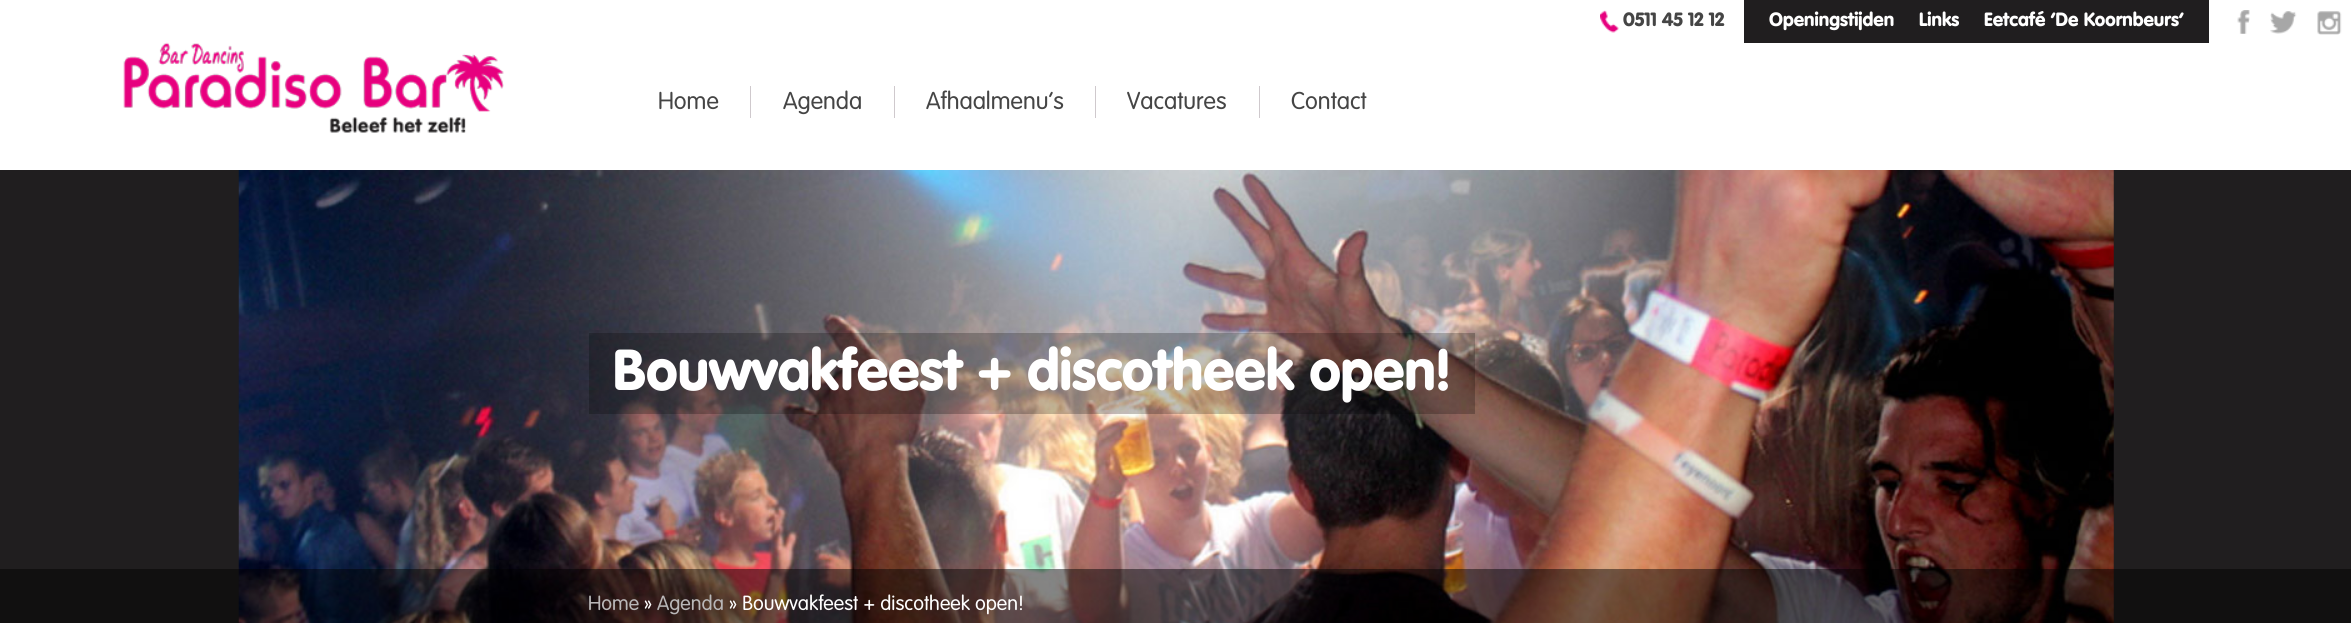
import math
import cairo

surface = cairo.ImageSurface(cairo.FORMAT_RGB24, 2351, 623)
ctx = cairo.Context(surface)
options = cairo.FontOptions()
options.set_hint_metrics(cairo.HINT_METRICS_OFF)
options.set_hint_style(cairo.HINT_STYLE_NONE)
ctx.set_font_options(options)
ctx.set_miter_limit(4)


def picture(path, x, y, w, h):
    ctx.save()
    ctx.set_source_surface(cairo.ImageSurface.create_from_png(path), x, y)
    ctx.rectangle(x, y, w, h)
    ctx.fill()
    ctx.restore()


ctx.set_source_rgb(1, 1, 1)
ctx.paint()
picture("img1.png", 1600, 10, 19, 23)
ctx.select_font_face("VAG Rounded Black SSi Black")
ctx.set_font_size(18.75)
ctx.set_source_rgb(0.271, 0.271, 0.271)
ctx.move_to(1623, 26)
ctx.show_text("0511 45 12 12")
ctx.set_source_rgb(0.125, 0.118, 0.122)
ctx.rectangle(1744, 0, 465, 43)
ctx.fill()
ctx.set_source_rgb(1, 1, 1)
ctx.move_to(1769, 26)
ctx.show_text("Openingstijden")
ctx.move_to(1919, 26)
ctx.show_text("Links")
ctx.move_to(1984, 26)
ctx.show_text("Eetcafé ‘De Koornbeurs’")
picture("img2.png", 2237, 10, 13, 24)
picture("img3.png", 2270, 11, 27, 23)
picture("img4.png", 2317, 11, 25, 24)
picture("img5.png", 123, 42, 381, 91)
ctx.select_font_face("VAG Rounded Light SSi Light")
ctx.set_font_size(23.75)
ctx.set_source_rgb(0.271, 0.271, 0.271)
ctx.move_to(658, 109)
ctx.show_text("Home")
ctx.set_source_rgb(0.812, 0.788, 0.804)
ctx.rectangle(750, 86, 1, 32)
ctx.fill()
ctx.set_source_rgb(0.271, 0.271, 0.271)
ctx.move_to(783, 109)
ctx.show_text("Agenda")
ctx.set_source_rgb(0.812, 0.788, 0.804)
ctx.rectangle(894, 86, 1, 32)
ctx.fill()
ctx.set_source_rgb(0.271, 0.271, 0.271)
ctx.move_to(926, 109)
ctx.show_text("Afhaalmenu’s")
ctx.set_source_rgb(0.812, 0.788, 0.804)
ctx.rectangle(1095, 86, 1, 32)
ctx.fill()
ctx.set_source_rgb(0.271, 0.271, 0.271)
ctx.move_to(1127, 109)
ctx.show_text("Vacatures")
ctx.set_source_rgb(0.812, 0.788, 0.804)
ctx.rectangle(1259, 86, 1, 32)
ctx.fill()
ctx.set_source_rgb(0.271, 0.271, 0.271)
ctx.move_to(1291, 109)
ctx.show_text("Contact")
ctx.set_source_rgb(0.125, 0.118, 0.122)
ctx.rectangle(0, 170, 2351, 453)
ctx.fill()
picture("img6.png", 238, 170, 1876, 453)
ctx.set_source_rgba(0, 0, 0, 0.24)
ctx.rectangle(589, 333, 886, 81)
ctx.fill()
ctx.select_font_face("VAG Rounded Black SSi Black")
ctx.set_font_size(56.25)
ctx.set_source_rgb(1, 1, 1)
ctx.move_to(613, 390)
ctx.show_text("Bouwvakfeest + discotheek open!")
ctx.set_source_rgba(0, 0, 0, 0.48)
ctx.rectangle(0, 569, 2351, 54)
ctx.fill()
ctx.select_font_face("VAG Rounded Light SSi Light")
ctx.set_font_size(20)
ctx.set_source_rgb(0.725, 0.718, 0.722)
ctx.move_to(588, 610)
ctx.show_text("Home")
ctx.set_source_rgb(1, 1, 1)
ctx.move_to(644, 610)
ctx.show_text("»")
ctx.set_source_rgb(0.725, 0.718, 0.722)
ctx.move_to(657, 610)
ctx.show_text("Agenda")
ctx.set_source_rgb(1, 1, 1)
ctx.move_to(729, 610)
ctx.show_text("» Bouwvakfeest + discotheek open!")
surface.write_to_png("page.png")
